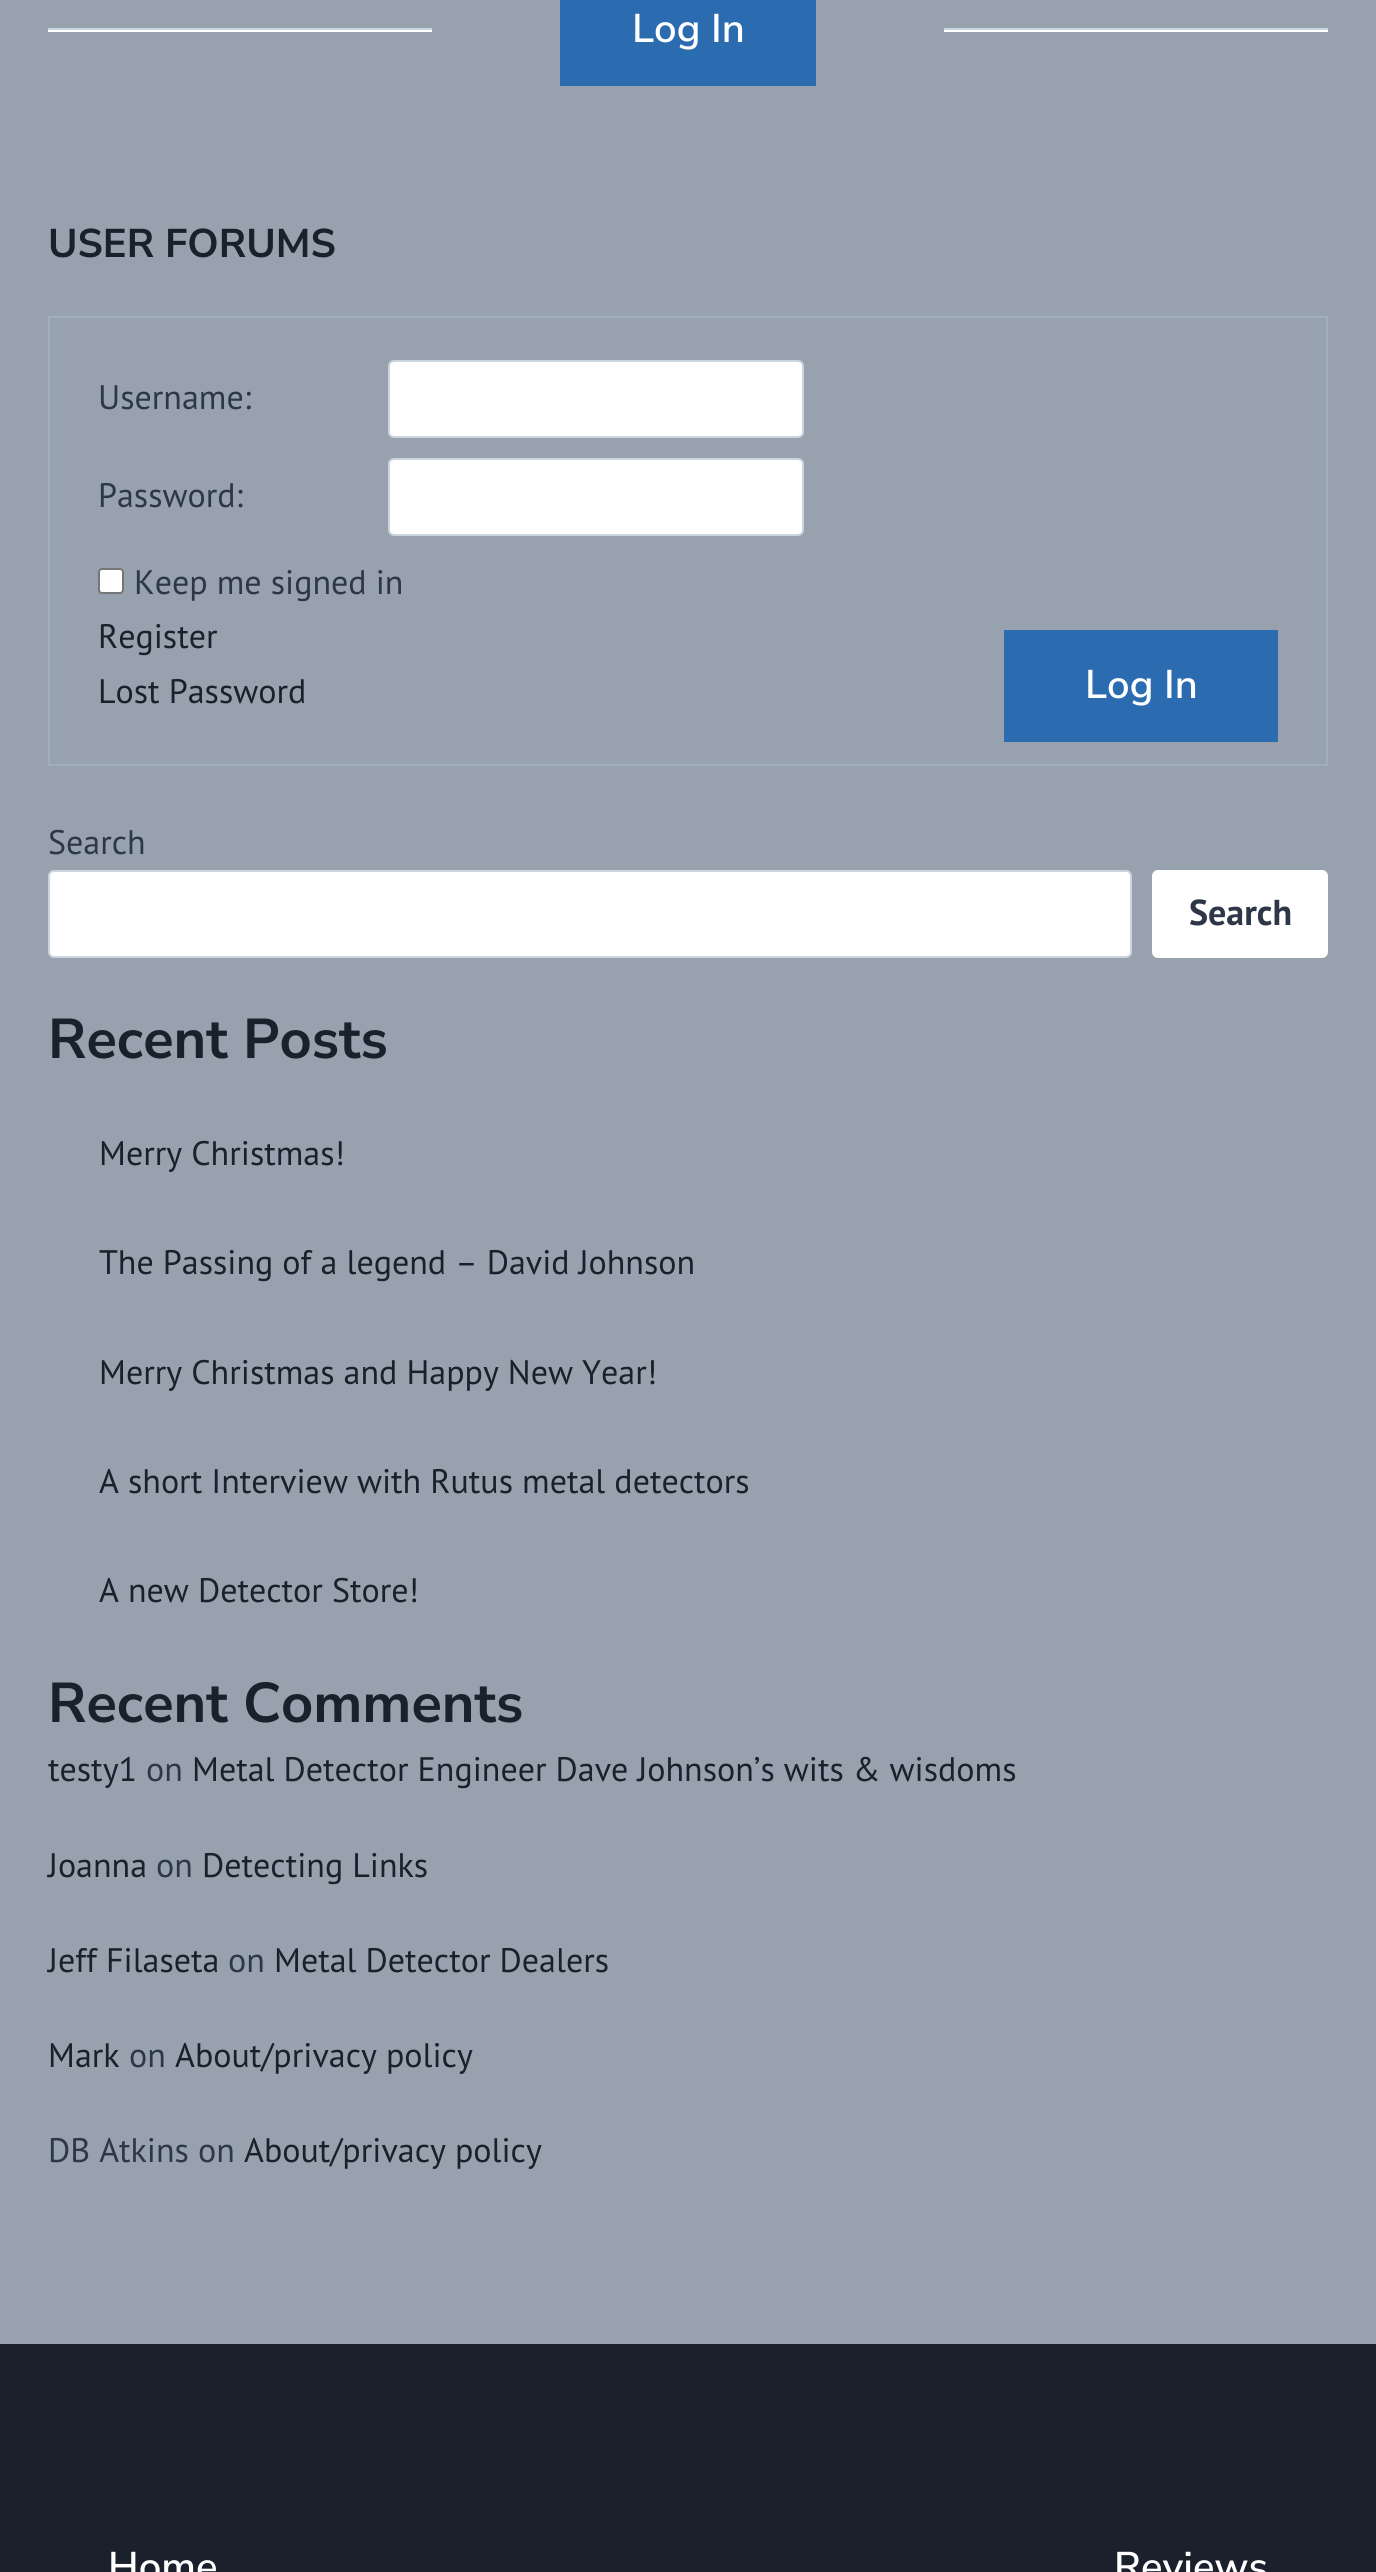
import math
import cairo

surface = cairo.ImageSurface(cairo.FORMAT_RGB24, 1376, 2572)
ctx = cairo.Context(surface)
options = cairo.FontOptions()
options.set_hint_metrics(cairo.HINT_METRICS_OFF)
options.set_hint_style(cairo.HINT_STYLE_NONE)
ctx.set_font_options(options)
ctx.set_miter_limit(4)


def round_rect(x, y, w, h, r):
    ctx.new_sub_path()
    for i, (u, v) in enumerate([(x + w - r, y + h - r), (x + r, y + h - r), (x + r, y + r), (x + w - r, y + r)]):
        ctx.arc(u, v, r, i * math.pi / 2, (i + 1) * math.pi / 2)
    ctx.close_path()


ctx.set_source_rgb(0.592, 0.635, 0.682)
ctx.paint()
ctx.set_source_rgb(0.796, 0.835, 0.878)
ctx.rectangle(48, 28, 384, 2)
ctx.fill()
ctx.set_source_rgb(1, 1, 1)
ctx.rectangle(48, 30, 384, 2)
ctx.fill()
ctx.set_source_rgb(0.169, 0.424, 0.69)
ctx.rectangle(560, 0, 256, 86)
ctx.fill()
ctx.select_font_face("Nunito Sans SemiBold")
ctx.set_font_size(40)
ctx.set_source_rgb(1, 1, 1)
ctx.move_to(632, 42)
ctx.show_text("Log In")
ctx.set_source_rgb(0.796, 0.835, 0.878)
ctx.rectangle(944, 28, 384, 2)
ctx.fill()
ctx.set_source_rgb(1, 1, 1)
ctx.rectangle(944, 30, 384, 2)
ctx.fill()
ctx.select_font_face("Nunito Sans", cairo.FONT_SLANT_NORMAL, cairo.FONT_WEIGHT_BOLD)
ctx.set_source_rgb(0.102, 0.125, 0.173)
ctx.move_to(48, 257)
ctx.show_text("USER FORUMS")
ctx.rectangle(49, 317, 1278, 448)
ctx.set_source_rgb(0.627, 0.682, 0.753)
ctx.stroke()
ctx.select_font_face("PT Sans")
ctx.set_font_size(34)
ctx.set_source_rgb(0.176, 0.216, 0.282)
ctx.move_to(98, 409)
ctx.show_text("Username:")
ctx.set_source_rgb(1, 1, 1)
round_rect(389, 361, 414, 76, 5)
ctx.fill_preserve()
ctx.set_source_rgb(0.796, 0.835, 0.878)
ctx.stroke()
ctx.set_source_rgb(0.176, 0.216, 0.282)
ctx.move_to(98, 507)
ctx.show_text("Password:")
ctx.set_source_rgb(1, 1, 1)
round_rect(389, 459, 414, 76, 5)
ctx.fill_preserve()
ctx.set_source_rgb(0.796, 0.835, 0.878)
ctx.stroke()
ctx.set_source_rgb(1, 1, 1)
round_rect(99, 569, 24, 24, 3)
ctx.fill_preserve()
ctx.set_source_rgb(0.463, 0.463, 0.463)
ctx.stroke()
ctx.set_source_rgb(0.176, 0.216, 0.282)
ctx.move_to(134, 594)
ctx.show_text("Keep me signed in")
ctx.set_source_rgb(0.102, 0.125, 0.173)
ctx.move_to(98, 648)
ctx.show_text("Register")
ctx.move_to(98, 703)
ctx.show_text("Lost Password")
ctx.set_source_rgb(0.169, 0.424, 0.69)
ctx.rectangle(1004, 630, 274, 112)
ctx.fill()
ctx.select_font_face("Nunito Sans SemiBold")
ctx.set_font_size(40)
ctx.set_source_rgb(1, 1, 1)
ctx.move_to(1085, 698)
ctx.show_text("Log In")
ctx.select_font_face("PT Sans")
ctx.set_font_size(34)
ctx.set_source_rgb(0.176, 0.216, 0.282)
ctx.move_to(48, 854)
ctx.show_text("Search")
ctx.set_source_rgb(1, 1, 1)
round_rect(49, 871, 1082, 86, 5)
ctx.fill_preserve()
ctx.set_source_rgb(0.796, 0.835, 0.878)
ctx.stroke()
ctx.set_source_rgb(1, 1, 1)
round_rect(1152, 870, 176, 88, 6)
ctx.fill()
ctx.select_font_face("PT Sans", cairo.FONT_SLANT_NORMAL, cairo.FONT_WEIGHT_BOLD)
ctx.set_font_size(36)
ctx.set_source_rgb(0.176, 0.216, 0.282)
ctx.move_to(1189, 925)
ctx.show_text("Search")
ctx.select_font_face("Nunito Sans", cairo.FONT_SLANT_NORMAL, cairo.FONT_WEIGHT_BOLD)
ctx.set_font_size(56)
ctx.set_source_rgb(0.102, 0.125, 0.173)
ctx.move_to(48, 1058)
ctx.show_text("Recent Posts")
ctx.select_font_face("PT Sans")
ctx.set_font_size(34)
ctx.move_to(99, 1165)
ctx.show_text("Merry Christmas!")
ctx.move_to(99, 1274)
ctx.show_text("The Passing of a legend – David Johnson")
ctx.move_to(99, 1384)
ctx.show_text("Merry Christmas and Happy New Year!")
ctx.move_to(99, 1493)
ctx.show_text("A short Interview with Rutus metal detectors")
ctx.move_to(99, 1602)
ctx.show_text("A new Detector Store!")
ctx.select_font_face("Nunito Sans", cairo.FONT_SLANT_NORMAL, cairo.FONT_WEIGHT_BOLD)
ctx.set_font_size(56)
ctx.move_to(48, 1722)
ctx.show_text("Recent Comments")
ctx.select_font_face("PT Sans")
ctx.set_font_size(34)
ctx.move_to(48, 1781)
ctx.show_text("testy1")
ctx.set_source_rgb(0.176, 0.216, 0.282)
ctx.move_to(146, 1781)
ctx.show_text("on")
ctx.set_source_rgb(0.102, 0.125, 0.173)
ctx.move_to(192, 1781)
ctx.show_text("Metal Detector Engineer Dave Johnson’s wits & wisdoms")
ctx.move_to(48, 1877)
ctx.show_text("Joanna")
ctx.set_source_rgb(0.176, 0.216, 0.282)
ctx.move_to(156, 1877)
ctx.show_text("on")
ctx.set_source_rgb(0.102, 0.125, 0.173)
ctx.move_to(202, 1877)
ctx.show_text("Detecting Links")
ctx.move_to(48, 1972)
ctx.show_text("Jeff Filaseta")
ctx.set_source_rgb(0.176, 0.216, 0.282)
ctx.move_to(228, 1972)
ctx.show_text("on")
ctx.set_source_rgb(0.102, 0.125, 0.173)
ctx.move_to(274, 1972)
ctx.show_text("Metal Detector Dealers")
ctx.move_to(48, 2067)
ctx.show_text("Mark")
ctx.set_source_rgb(0.176, 0.216, 0.282)
ctx.move_to(129, 2067)
ctx.show_text("on")
ctx.set_source_rgb(0.102, 0.125, 0.173)
ctx.move_to(175, 2067)
ctx.show_text("About/privacy policy")
ctx.set_source_rgb(0.176, 0.216, 0.282)
ctx.move_to(48, 2162)
ctx.show_text("DB Atkins on")
ctx.set_source_rgb(0.102, 0.125, 0.173)
ctx.move_to(244, 2162)
ctx.show_text("About/privacy policy")
ctx.rectangle(0, 2344, 1376, 228)
ctx.fill()
ctx.select_font_face("Nunito Sans SemiBold")
ctx.set_font_size(40)
ctx.set_source_rgb(1, 1, 1)
ctx.move_to(108, 2580)
ctx.show_text("Home")
ctx.move_to(1114, 2580)
ctx.show_text("Reviews")
surface.write_to_png("page.png")
